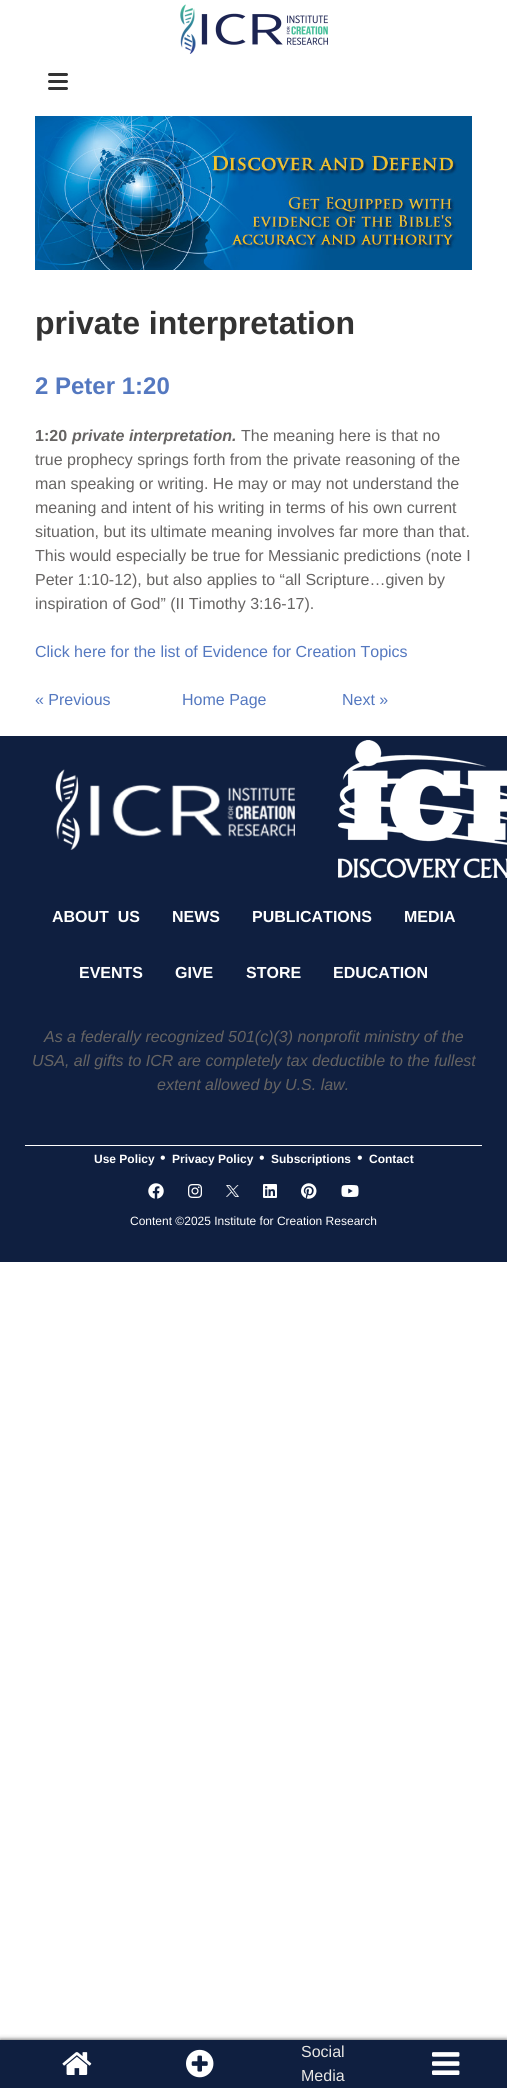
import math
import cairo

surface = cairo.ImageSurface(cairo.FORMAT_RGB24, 507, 2088)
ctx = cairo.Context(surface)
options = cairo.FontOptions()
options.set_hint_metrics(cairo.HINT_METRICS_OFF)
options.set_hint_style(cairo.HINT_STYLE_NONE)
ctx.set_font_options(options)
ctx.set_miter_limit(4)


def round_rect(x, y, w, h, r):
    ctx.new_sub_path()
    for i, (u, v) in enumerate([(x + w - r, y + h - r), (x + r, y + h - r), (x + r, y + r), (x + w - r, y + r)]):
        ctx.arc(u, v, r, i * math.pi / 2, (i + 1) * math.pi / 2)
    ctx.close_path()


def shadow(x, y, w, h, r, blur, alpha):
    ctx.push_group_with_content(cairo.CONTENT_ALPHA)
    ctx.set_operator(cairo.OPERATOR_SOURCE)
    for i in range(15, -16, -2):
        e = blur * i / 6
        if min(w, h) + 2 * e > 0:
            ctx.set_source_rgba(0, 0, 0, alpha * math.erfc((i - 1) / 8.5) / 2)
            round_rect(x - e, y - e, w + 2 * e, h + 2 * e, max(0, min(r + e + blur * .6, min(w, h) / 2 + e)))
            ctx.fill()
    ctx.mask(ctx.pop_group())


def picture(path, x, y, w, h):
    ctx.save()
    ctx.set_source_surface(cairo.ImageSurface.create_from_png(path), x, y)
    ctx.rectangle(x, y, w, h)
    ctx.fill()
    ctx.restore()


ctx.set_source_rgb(1, 1, 1)
ctx.paint()
picture("img1.png", 180, 4, 148, 50)
ctx.set_source_rgb(0.2, 0.2, 0.2)
round_rect(48, 73, 20, 3, 1.5)
ctx.fill()
round_rect(48, 80, 20, 3, 1.5)
ctx.fill()
round_rect(48, 87, 20, 3, 1.5)
ctx.fill()
picture("img2.png", 35, 116, 437, 154)
ctx.select_font_face("Liberation Sans", cairo.FONT_SLANT_NORMAL, cairo.FONT_WEIGHT_BOLD)
ctx.set_font_size(32)
ctx.move_to(35, 334)
ctx.show_text("private interpretation")
ctx.set_font_size(24)
ctx.set_source_rgb(0.329, 0.471, 0.753)
ctx.move_to(35, 394)
ctx.show_text("2 Peter 1:20")
ctx.set_font_size(16)
ctx.set_source_rgb(0.4, 0.392, 0.388)
ctx.move_to(35, 441)
ctx.show_text("1:20")
ctx.select_font_face("Liberation Sans", cairo.FONT_SLANT_ITALIC, cairo.FONT_WEIGHT_BOLD)
ctx.move_to(72, 441)
ctx.show_text("private interpretation.")
ctx.select_font_face("Liberation Sans")
ctx.move_to(241, 441)
ctx.show_text("The meaning here is that no")
ctx.move_to(35, 465)
ctx.show_text("true prophecy springs forth from the private reasoning of the")
ctx.move_to(35, 489)
ctx.show_text("man speaking or writing. He may or may not understand the")
ctx.move_to(35, 513)
ctx.show_text("meaning and intent of his writing in terms of his own current")
ctx.move_to(35, 537)
ctx.show_text("situation, but its ultimate meaning involves far more than that.")
ctx.move_to(35, 561)
ctx.show_text("This would especially be true for Messianic predictions (note I")
ctx.move_to(35, 585)
ctx.show_text("Peter 1:10-12), but also applies to “all Scripture…given by")
ctx.move_to(35, 609)
ctx.show_text("inspiration of God” (II Timothy 3:16-17).")
ctx.set_source_rgb(0.329, 0.471, 0.753)
ctx.move_to(35, 657)
ctx.show_text("Click here for the list of Evidence for Creation Topics")
ctx.move_to(35, 705)
ctx.show_text("« Previous")
ctx.move_to(182, 705)
ctx.show_text("Home Page")
ctx.move_to(342, 705)
ctx.show_text("Next »")
ctx.set_source_rgb(0.059, 0.122, 0.251)
ctx.rectangle(0, 736, 507, 526)
ctx.fill()
picture("img3.png", 55, 769, 240, 81)
picture("img4.png", 338, 740, 169, 138)
ctx.select_font_face("Liberation Sans", cairo.FONT_SLANT_NORMAL, cairo.FONT_WEIGHT_BOLD)
ctx.set_source_rgb(1, 1, 1)
ctx.move_to(52, 922)
ctx.show_text("ABOUT  US")
ctx.move_to(172, 922)
ctx.show_text("NEWS")
ctx.move_to(252, 922)
ctx.show_text("PUBLICATIONS")
ctx.move_to(404, 922)
ctx.show_text("MEDIA")
ctx.move_to(79, 978)
ctx.show_text("EVENTS")
ctx.move_to(175, 978)
ctx.show_text("GIVE")
ctx.move_to(246, 978)
ctx.show_text("STORE")
ctx.move_to(333, 978)
ctx.show_text("EDUCATION")
ctx.select_font_face("Liberation Sans", cairo.FONT_SLANT_ITALIC)
ctx.set_source_rgb(0.4, 0.392, 0.388)
ctx.move_to(44, 1042)
ctx.show_text("As a federally recognized 501(c)(3) nonprofit ministry of the")
ctx.move_to(32, 1066)
ctx.show_text("USA, all gifts to ICR are completely tax deductible to the fullest")
ctx.move_to(157, 1090)
ctx.show_text("extent allowed by U.S. law.")
ctx.set_source_rgb(1, 1, 1)
ctx.rectangle(25, 1145, 457, 1)
ctx.fill()
ctx.select_font_face("Liberation Sans", cairo.FONT_SLANT_NORMAL, cairo.FONT_WEIGHT_BOLD)
ctx.set_font_size(12)
ctx.move_to(94, 1163)
ctx.show_text("Use Policy")
ctx.select_font_face("Liberation Sans")
ctx.set_font_size(16)
ctx.move_to(160, 1163)
ctx.show_text("•")
ctx.select_font_face("Liberation Sans", cairo.FONT_SLANT_NORMAL, cairo.FONT_WEIGHT_BOLD)
ctx.set_font_size(12)
ctx.move_to(172, 1163)
ctx.show_text("Privacy Policy")
ctx.select_font_face("Liberation Sans")
ctx.set_font_size(16)
ctx.move_to(259, 1163)
ctx.show_text("•")
ctx.select_font_face("Liberation Sans", cairo.FONT_SLANT_NORMAL, cairo.FONT_WEIGHT_BOLD)
ctx.set_font_size(12)
ctx.move_to(271, 1163)
ctx.show_text("Subscriptions")
ctx.select_font_face("Liberation Sans")
ctx.set_font_size(16)
ctx.move_to(357, 1163)
ctx.show_text("•")
ctx.select_font_face("Liberation Sans", cairo.FONT_SLANT_NORMAL, cairo.FONT_WEIGHT_BOLD)
ctx.set_font_size(12)
ctx.move_to(369, 1163)
ctx.show_text("Contact")
picture("img5.png", 148, 1183, 16, 16)
picture("img6.png", 188, 1184, 14, 14)
picture("img7.png", 226, 1185, 13, 12)
picture("img8.png", 263, 1184, 14, 14)
picture("img9.png", 301, 1183, 16, 16)
picture("img10.png", 341, 1185, 18, 12)
ctx.select_font_face("Liberation Sans")
ctx.move_to(130, 1225)
ctx.show_text("Content ©2025 Institute for Creation Research")
ctx.set_source_rgb(0, 0, 0)
shadow(0, 2040, 507, 48, 0, 2.5, 0.75)
ctx.set_source_rgb(0.059, 0.122, 0.251)
ctx.rectangle(0, 2040, 507, 48)
ctx.fill()
picture("img11.png", 62, 2052, 30, 23)
picture("img12.png", 186, 2049, 28, 29)
ctx.set_font_size(16)
ctx.set_source_rgb(0.91, 0.902, 0.89)
ctx.move_to(301, 2057)
ctx.show_text("Social")
ctx.move_to(301, 2081)
ctx.show_text("Media")
picture("img13.png", 432, 2052, 28, 23)
surface.write_to_png("page.png")
